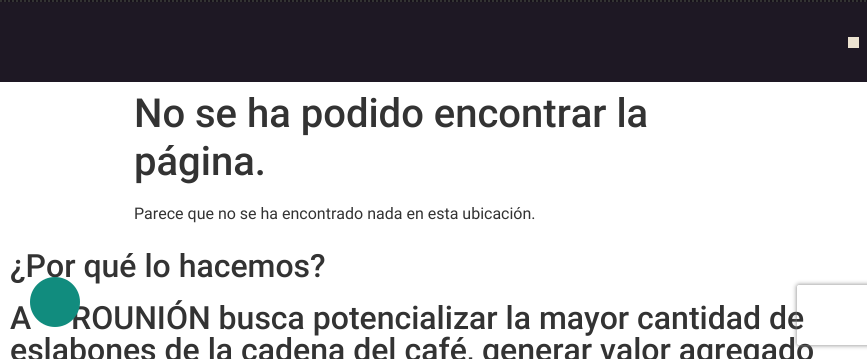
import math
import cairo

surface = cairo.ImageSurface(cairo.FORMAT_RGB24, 867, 359)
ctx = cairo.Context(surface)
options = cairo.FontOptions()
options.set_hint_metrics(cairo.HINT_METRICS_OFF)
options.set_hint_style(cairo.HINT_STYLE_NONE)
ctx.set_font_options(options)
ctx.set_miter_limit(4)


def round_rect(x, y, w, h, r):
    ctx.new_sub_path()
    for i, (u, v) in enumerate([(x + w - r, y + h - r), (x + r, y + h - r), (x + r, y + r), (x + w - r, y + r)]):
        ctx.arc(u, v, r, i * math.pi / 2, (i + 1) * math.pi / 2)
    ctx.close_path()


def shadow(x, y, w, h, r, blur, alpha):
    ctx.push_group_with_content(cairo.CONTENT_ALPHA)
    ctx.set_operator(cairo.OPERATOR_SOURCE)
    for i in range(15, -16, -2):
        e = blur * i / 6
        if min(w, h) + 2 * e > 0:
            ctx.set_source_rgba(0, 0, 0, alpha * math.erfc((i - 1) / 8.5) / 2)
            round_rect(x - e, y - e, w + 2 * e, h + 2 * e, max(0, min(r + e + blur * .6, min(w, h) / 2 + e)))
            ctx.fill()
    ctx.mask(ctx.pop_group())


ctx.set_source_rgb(1, 1, 1)
ctx.paint()
ctx.set_source_rgb(0.09, 0.067, 0.106)
ctx.rectangle(0, 0, 867, 2)
ctx.fill()
ctx.new_path()
ctx.move_to(0, 1)
ctx.line_to(867, 1)
ctx.set_source_rgb(0.2, 0.2, 0.2)
ctx.set_dash([2, 2])
ctx.stroke()
ctx.set_source_rgb(0.118, 0.094, 0.141)
ctx.rectangle(0, 2, 867, 80)
ctx.fill()
ctx.set_source_rgb(0.922, 0.886, 0.82)
ctx.rectangle(848, 37, 11, 11)
ctx.fill()
ctx.select_font_face("Roboto Medium")
ctx.set_font_size(40)
ctx.set_source_rgb(0.2, 0.2, 0.2)
ctx.move_to(134, 127)
ctx.show_text("No se ha podido encontrar la")
ctx.move_to(134, 175)
ctx.show_text("página.")
ctx.select_font_face("Roboto")
ctx.set_font_size(16)
ctx.move_to(134, 219)
ctx.show_text("Parece que no se ha encontrado nada en esta ubicación.")
ctx.select_font_face("Roboto Medium")
ctx.set_font_size(32)
ctx.move_to(10, 277)
ctx.show_text("¿Por qué lo hacemos?")
ctx.move_to(10, 329)
ctx.show_text("A")
ctx.move_to(71, 329)
ctx.show_text("ROUNIÓN busca potencializar la mayor cantidad de")
ctx.move_to(10, 361)
ctx.show_text("eslabones de la cadena del café, generar valor agregado")
ctx.save()
ctx.set_fill_rule(cairo.FILL_RULE_EVEN_ODD)
ctx.new_path()
ctx.move_to(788, 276)
ctx.line_to(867, 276)
ctx.line_to(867, 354)
ctx.line_to(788, 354)
ctx.close_path()
ctx.move_to(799, 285)
ctx.line_to(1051, 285)
ctx.curve_to(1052, 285, 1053, 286, 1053, 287)
ctx.line_to(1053, 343)
ctx.curve_to(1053, 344, 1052, 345, 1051, 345)
ctx.line_to(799, 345)
ctx.curve_to(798, 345, 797, 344, 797, 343)
ctx.line_to(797, 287)
ctx.curve_to(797, 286, 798, 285, 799, 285)
ctx.close_path()
ctx.clip()
ctx.set_source_rgb(0.502, 0.502, 0.502)
shadow(797, 285, 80, 60, 2, 2.5, 1)
ctx.restore()
ctx.set_source_rgb(0.067, 0.549, 0.494)
ctx.arc(55, 302, 25, 0, 2 * math.pi)
ctx.fill()
surface.write_to_png("page.png")
